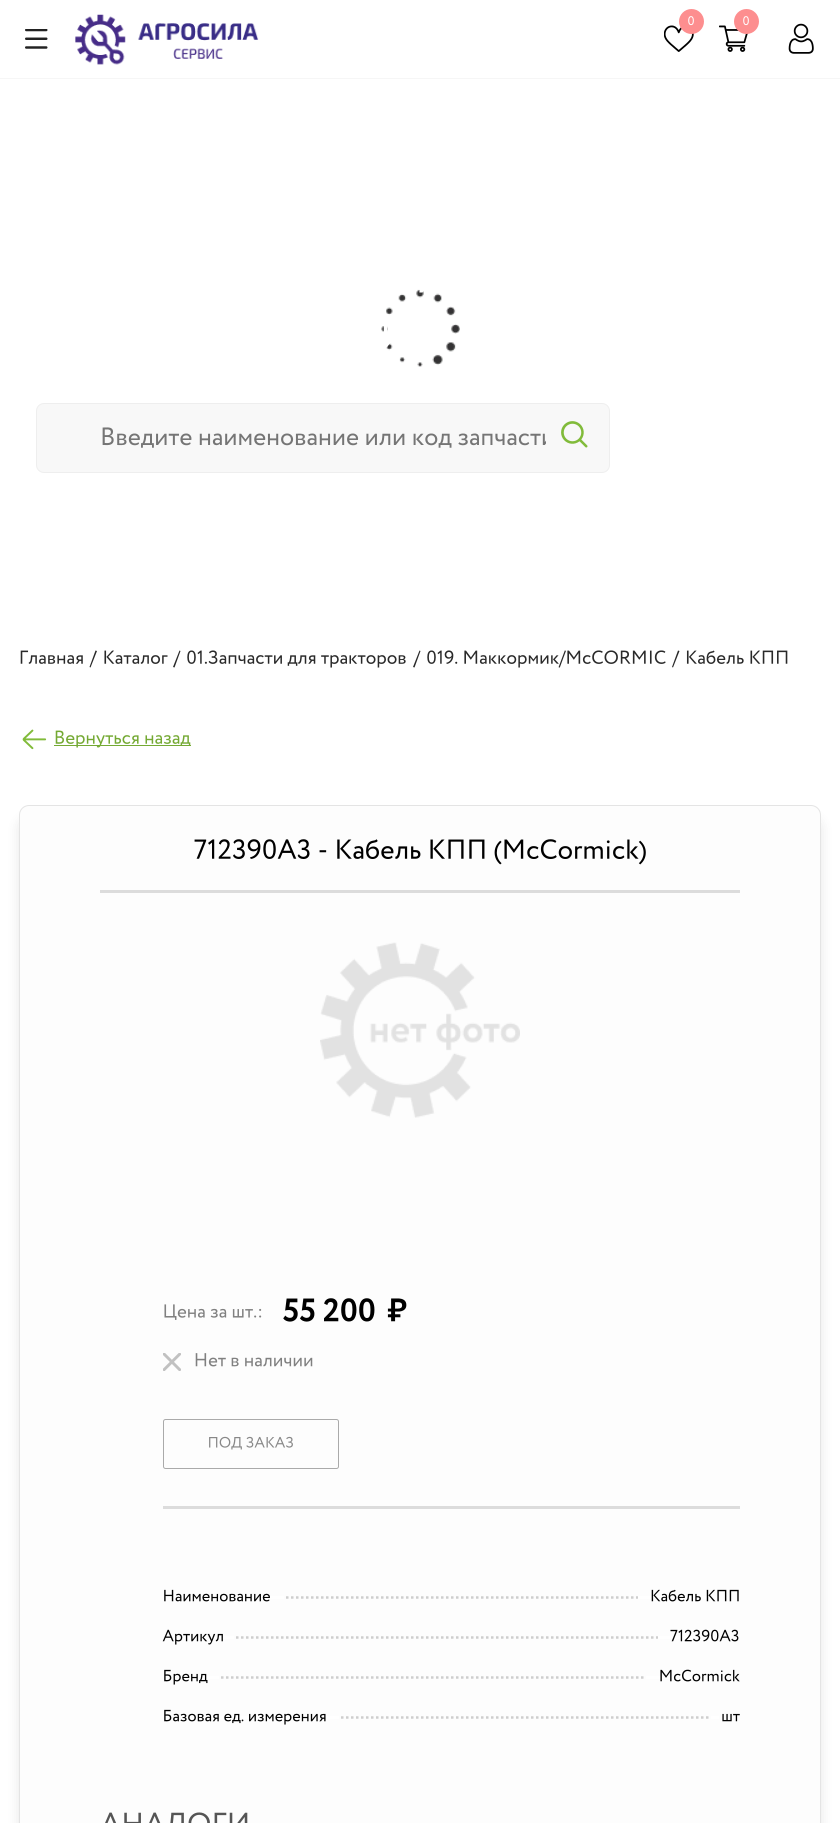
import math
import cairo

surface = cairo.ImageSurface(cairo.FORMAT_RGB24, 840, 1823)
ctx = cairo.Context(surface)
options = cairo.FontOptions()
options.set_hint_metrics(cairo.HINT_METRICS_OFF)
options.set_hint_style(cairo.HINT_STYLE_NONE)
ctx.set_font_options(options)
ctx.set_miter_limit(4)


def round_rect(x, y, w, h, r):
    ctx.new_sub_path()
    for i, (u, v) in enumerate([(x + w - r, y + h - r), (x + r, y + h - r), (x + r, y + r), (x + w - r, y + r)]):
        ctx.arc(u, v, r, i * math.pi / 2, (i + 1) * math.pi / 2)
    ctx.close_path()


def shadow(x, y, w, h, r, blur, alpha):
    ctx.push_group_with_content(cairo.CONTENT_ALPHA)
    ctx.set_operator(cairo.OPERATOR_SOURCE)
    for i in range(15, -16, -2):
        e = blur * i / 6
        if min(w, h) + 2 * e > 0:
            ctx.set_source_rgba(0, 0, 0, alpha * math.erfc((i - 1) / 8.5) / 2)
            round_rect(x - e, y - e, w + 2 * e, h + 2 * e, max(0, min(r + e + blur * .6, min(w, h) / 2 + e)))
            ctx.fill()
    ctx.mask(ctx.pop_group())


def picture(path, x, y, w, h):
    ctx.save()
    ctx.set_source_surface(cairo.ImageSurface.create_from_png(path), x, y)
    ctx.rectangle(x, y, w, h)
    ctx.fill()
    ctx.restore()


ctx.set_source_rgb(1, 1, 1)
ctx.paint()
ctx.set_source_rgb(0.961, 0.961, 0.961)
ctx.rectangle(0, 78, 840, 1)
ctx.fill()
picture("img1.png", 25, 29, 23, 20)
picture("img2.png", 75, 14, 184, 51)
picture("img4.png", 664, 25, 30, 27)
ctx.set_source_rgb(0.992, 0.557, 0.561)
ctx.arc(691.5, 21.5, 12.5, 0, 2 * math.pi)
ctx.fill()
picture("img3.png", 688, 16, 6, 10)
picture("img5.png", 719, 25, 29, 27)
ctx.arc(746.5, 21.5, 12.5, 0, 2 * math.pi)
ctx.fill()
picture("img3.png", 743, 16, 6, 10)
picture("img6.png", 788, 23, 26, 31)
picture("img7.png", 381, 289, 79, 78)
picture("img8.png", 419, 289, 5, 4)
picture("img9.png", 383, 326, 7, 22)
ctx.set_source_rgb(0.969, 0.969, 0.969)
round_rect(36.5, 403.5, 573, 69, 7.5)
ctx.fill_preserve()
ctx.set_source_rgb(0.933, 0.933, 0.933)
ctx.set_line_width(1)
ctx.stroke()
picture("img10.png", 102, 427, 444, 21)
picture("img11.png", 561, 421, 27, 27)
picture("img12.png", 20, 650, 63, 14)
ctx.set_source_rgb(0.161, 0.161, 0.161)
ctx.new_path()
ctx.move_to(90.5, 667.5)
ctx.line_to(89.5, 667)
ctx.line_to(95.5, 650.5)
ctx.line_to(97, 651)
ctx.close_path()
ctx.fill()
picture("img13.png", 104, 650, 64, 14)
ctx.new_path()
ctx.move_to(174.5, 667.5)
ctx.line_to(173, 667)
ctx.line_to(179.5, 650.5)
ctx.line_to(180.5, 651)
ctx.close_path()
ctx.fill()
picture("img14.png", 187, 650, 219, 18)
ctx.new_path()
ctx.move_to(414.5, 667.5)
ctx.line_to(413, 667)
ctx.line_to(419.5, 650.5)
ctx.line_to(420.5, 651)
ctx.close_path()
ctx.fill()
picture("img15.png", 427, 650, 239, 18)
ctx.new_path()
ctx.move_to(673, 667.5)
ctx.line_to(672, 667)
ctx.line_to(678, 650.5)
ctx.line_to(679.5, 651)
ctx.close_path()
ctx.fill()
picture("img16.png", 686, 650, 102, 14)
picture("img17.png", 22, 729, 25, 21)
ctx.set_source_rgb(0.455, 0.663, 0.2)
ctx.rectangle(54, 745, 137, 1)
ctx.fill()
picture("img18.png", 55, 730, 136, 18)
ctx.set_source_rgb(0, 0, 0)
shadow(19, 818, 802, 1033, 10, 6, 0.1)
ctx.set_source_rgb(0.992, 0.992, 0.992)
round_rect(19.5, 805.5, 801, 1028, 9.5)
ctx.fill_preserve()
ctx.set_source_rgb(0.894, 0.894, 0.894)
ctx.stroke()
ctx.set_source_rgb(0.863, 0.863, 0.863)
ctx.rectangle(100, 890, 640, 3)
ctx.fill()
picture("img19.png", 194, 839, 452, 26)
picture("img20.png", 320, 942, 200, 176)
picture("img21.png", 164, 1304, 98, 16)
picture("img22.png", 283, 1298, 92, 24)
picture("img23.png", 387, 1298, 20, 24)
picture("img24.png", 163, 1353, 18, 18)
picture("img25.png", 195, 1353, 118, 14)
round_rect(163.5, 1419.5, 175, 49, 2)
ctx.set_source_rgb(0.667, 0.667, 0.667)
ctx.stroke()
picture("img26.png", 209, 1436, 84, 14)
ctx.set_source_rgb(0.863, 0.863, 0.863)
ctx.rectangle(163, 1506, 577, 3)
ctx.fill()
ctx.new_path()
ctx.move_to(181, 1597.5)
ctx.line_to(721, 1597.5)
ctx.set_source_rgb(0.808, 0.808, 0.808)
ctx.set_line_width(2.5)
ctx.set_dash([2.5, 2.5])
ctx.stroke()
ctx.set_source_rgb(1, 1, 1)
ctx.rectangle(181, 1596, 103, 3)
ctx.fill()
picture("img27.png", 164, 1589, 106, 13)
ctx.rectangle(638, 1596, 81, 3)
ctx.fill()
picture("img28.png", 651, 1589, 88, 13)
ctx.new_path()
ctx.move_to(181, 1637.5)
ctx.line_to(721, 1637.5)
ctx.set_source_rgb(0.808, 0.808, 0.808)
ctx.stroke()
ctx.set_source_rgb(1, 1, 1)
ctx.rectangle(181, 1636, 53, 3)
ctx.fill()
picture("img29.png", 162, 1629, 61, 16)
ctx.rectangle(658, 1636, 61, 3)
ctx.fill()
picture("img30.png", 670, 1629, 69, 13)
ctx.new_path()
ctx.move_to(181, 1677.5)
ctx.line_to(721, 1677.5)
ctx.set_source_rgb(0.808, 0.808, 0.808)
ctx.stroke()
ctx.set_source_rgb(1, 1, 1)
ctx.rectangle(181, 1676, 38, 3)
ctx.fill()
picture("img31.png", 164, 1669, 44, 16)
ctx.rectangle(646, 1676, 73, 3)
ctx.fill()
picture("img32.png", 660, 1669, 80, 13)
ctx.new_path()
ctx.move_to(181, 1717.5)
ctx.line_to(721, 1717.5)
ctx.set_source_rgb(0.808, 0.808, 0.808)
ctx.stroke()
ctx.set_source_rgb(1, 1, 1)
ctx.rectangle(181, 1716, 158, 3)
ctx.fill()
picture("img33.png", 164, 1709, 162, 16)
ctx.rectangle(711, 1716, 8, 3)
ctx.fill()
picture("img34.png", 722, 1713, 18, 9)
picture("img35.png", 105, 1812, 143, 11)
surface.write_to_png("page.png")
